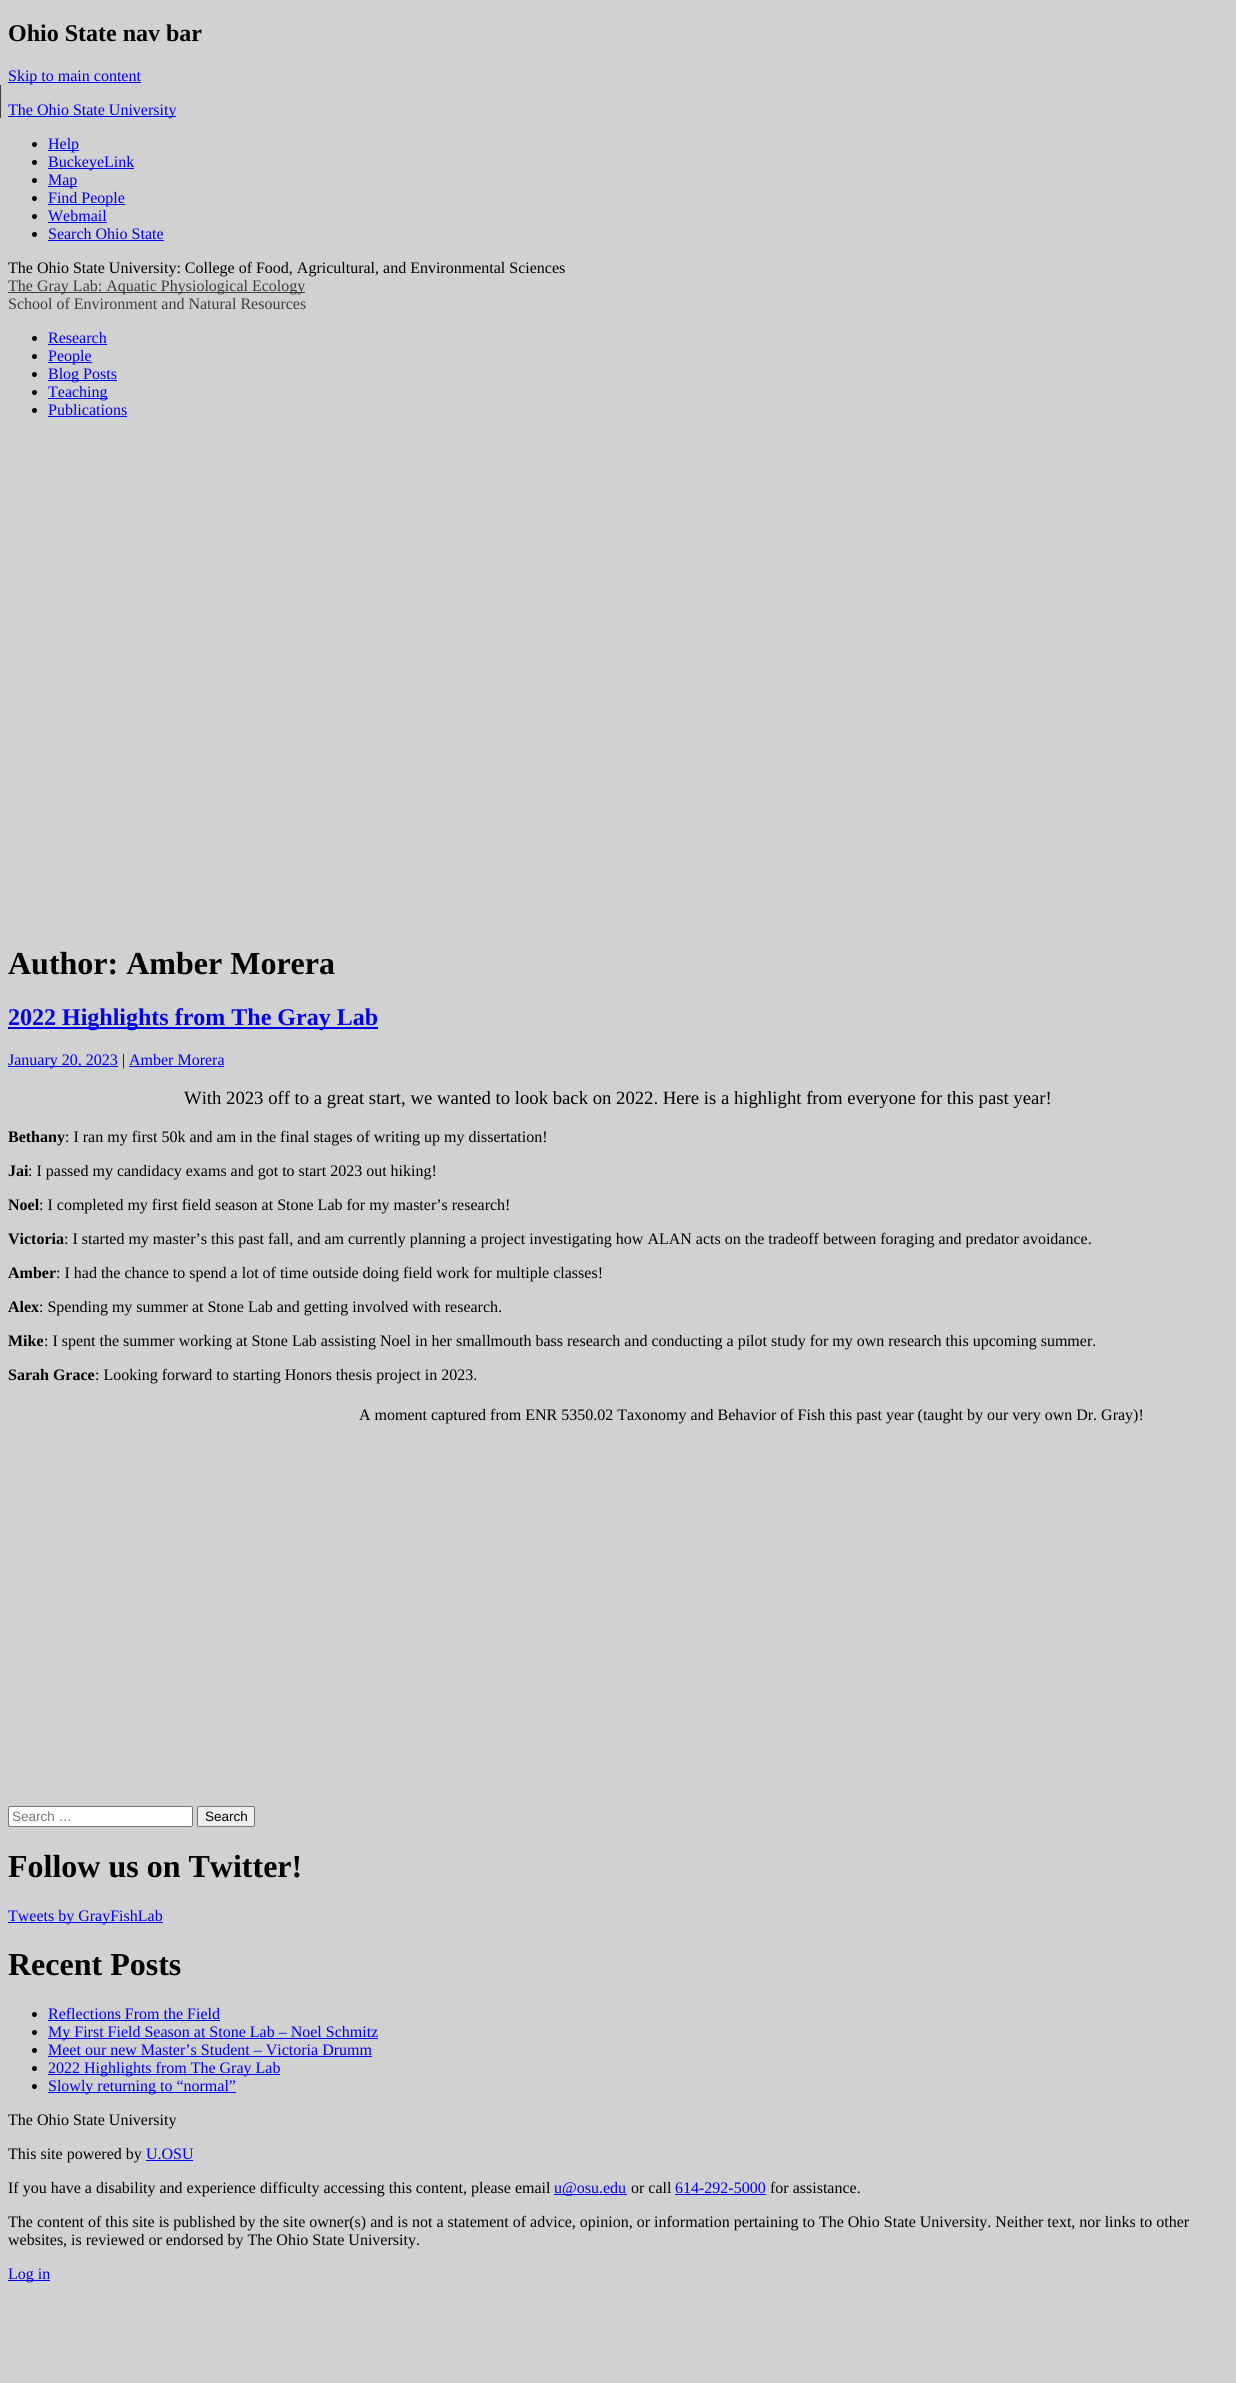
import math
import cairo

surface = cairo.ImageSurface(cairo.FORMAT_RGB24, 1236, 2383)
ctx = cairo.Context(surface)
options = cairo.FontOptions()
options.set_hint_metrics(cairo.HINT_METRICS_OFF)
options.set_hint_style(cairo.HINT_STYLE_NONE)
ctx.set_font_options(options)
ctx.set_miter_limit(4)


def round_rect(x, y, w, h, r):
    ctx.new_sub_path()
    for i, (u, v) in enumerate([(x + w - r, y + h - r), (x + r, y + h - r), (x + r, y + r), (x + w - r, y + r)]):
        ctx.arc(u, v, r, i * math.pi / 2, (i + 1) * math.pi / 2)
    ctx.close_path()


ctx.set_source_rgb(0.82, 0.82, 0.82)
ctx.paint()
ctx.select_font_face("Liberation Serif", cairo.FONT_SLANT_NORMAL, cairo.FONT_WEIGHT_BOLD)
ctx.set_font_size(24)
ctx.set_source_rgb(0, 0, 0)
ctx.move_to(8, 41)
ctx.show_text("Ohio State nav bar")
ctx.set_source_rgb(0, 0, 0.933)
ctx.rectangle(8, 82, 133, 1)
ctx.fill()
ctx.select_font_face("Liberation Serif")
ctx.set_font_size(16)
ctx.move_to(8, 81)
ctx.show_text("Skip to main content")
ctx.set_source_rgb(0.247, 0.247, 0.247)
ctx.rectangle(0, 85, 1, 33)
ctx.fill()
ctx.set_source_rgb(0, 0, 0.933)
ctx.rectangle(8, 116, 168, 1)
ctx.fill()
ctx.move_to(8, 115)
ctx.show_text("The Ohio State University")
ctx.set_source_rgb(0, 0, 0)
ctx.new_path()
ctx.arc(34.5, 144.5, 2.5, 0, 2 * math.pi)
ctx.fill()
ctx.set_source_rgb(0, 0, 0.933)
ctx.rectangle(48, 150, 31, 1)
ctx.fill()
ctx.move_to(48, 149)
ctx.show_text("Help")
ctx.set_source_rgb(0, 0, 0)
ctx.new_path()
ctx.arc(34.5, 162.5, 2.5, 0, 2 * math.pi)
ctx.fill()
ctx.set_source_rgb(0, 0, 0.933)
ctx.rectangle(48, 168, 86, 1)
ctx.fill()
ctx.move_to(48, 167)
ctx.show_text("BuckeyeLink")
ctx.set_source_rgb(0, 0, 0)
ctx.new_path()
ctx.arc(34.5, 180.5, 2.5, 0, 2 * math.pi)
ctx.fill()
ctx.set_source_rgb(0, 0, 0.933)
ctx.rectangle(48, 186, 29, 1)
ctx.fill()
ctx.move_to(48, 185)
ctx.show_text("Map")
ctx.set_source_rgb(0, 0, 0)
ctx.new_path()
ctx.arc(34.5, 198.5, 2.5, 0, 2 * math.pi)
ctx.fill()
ctx.set_source_rgb(0, 0, 0.933)
ctx.rectangle(48, 204, 77, 1)
ctx.fill()
ctx.move_to(48, 203)
ctx.show_text("Find People")
ctx.set_source_rgb(0, 0, 0)
ctx.new_path()
ctx.arc(34.5, 216.5, 2.5, 0, 2 * math.pi)
ctx.fill()
ctx.set_source_rgb(0, 0, 0.933)
ctx.move_to(48, 221)
ctx.show_text("Webmail")
ctx.rectangle(48, 222, 59, 1)
ctx.fill()
ctx.set_source_rgb(0, 0, 0)
ctx.arc(34.5, 234.5, 2.5, 0, 2 * math.pi)
ctx.fill()
ctx.set_source_rgb(0, 0, 0.933)
ctx.move_to(48, 239)
ctx.show_text("Search Ohio State")
ctx.rectangle(48, 240, 116, 1)
ctx.fill()
ctx.set_source_rgb(0, 0, 0)
ctx.move_to(8, 273)
ctx.show_text("The Ohio State University: College of Food, Agricultural, and Environmental Sciences")
ctx.set_source_rgb(0.239, 0.239, 0.239)
ctx.rectangle(8, 292, 297, 1)
ctx.fill()
ctx.move_to(8, 291)
ctx.show_text("The Gray Lab: Aquatic Physiological Ecology")
ctx.move_to(8, 309)
ctx.show_text("School of Environment and Natural Resources")
ctx.set_source_rgb(0, 0, 0)
ctx.new_path()
ctx.arc(34.5, 338.5, 2.5, 0, 2 * math.pi)
ctx.fill()
ctx.set_source_rgb(0, 0, 0.933)
ctx.move_to(48, 343)
ctx.show_text("Research")
ctx.rectangle(48, 344, 59, 1)
ctx.fill()
ctx.set_source_rgb(0, 0, 0)
ctx.arc(34.5, 356.5, 2.5, 0, 2 * math.pi)
ctx.fill()
ctx.set_source_rgb(0, 0, 0.933)
ctx.rectangle(48, 362, 44, 1)
ctx.fill()
ctx.move_to(48, 361)
ctx.show_text("People")
ctx.set_source_rgb(0, 0, 0)
ctx.new_path()
ctx.arc(34.5, 374.5, 2.5, 0, 2 * math.pi)
ctx.fill()
ctx.set_source_rgb(0, 0, 0.933)
ctx.rectangle(48, 380, 69, 1)
ctx.fill()
ctx.move_to(48, 379)
ctx.show_text("Blog Posts")
ctx.set_source_rgb(0, 0, 0)
ctx.new_path()
ctx.arc(34.5, 392.5, 2.5, 0, 2 * math.pi)
ctx.fill()
ctx.set_source_rgb(0, 0, 0.933)
ctx.rectangle(48, 398, 60, 1)
ctx.fill()
ctx.move_to(48, 397)
ctx.show_text("Teaching")
ctx.set_source_rgb(0, 0, 0)
ctx.new_path()
ctx.arc(34.5, 410.5, 2.5, 0, 2 * math.pi)
ctx.fill()
ctx.set_source_rgb(0, 0, 0.933)
ctx.move_to(48, 415)
ctx.show_text("Publications")
ctx.rectangle(48, 416, 79, 1)
ctx.fill()
ctx.select_font_face("Liberation Serif", cairo.FONT_SLANT_NORMAL, cairo.FONT_WEIGHT_BOLD)
ctx.set_font_size(32)
ctx.set_source_rgb(0, 0, 0)
ctx.move_to(8, 974)
ctx.show_text("Author: Amber Morera")
ctx.set_source_rgb(0, 0, 0.933)
ctx.rectangle(8, 1027, 370, 2)
ctx.fill()
ctx.set_font_size(24)
ctx.move_to(8, 1025)
ctx.show_text("2022 Highlights from The Gray Lab")
ctx.rectangle(8, 1066, 110, 1)
ctx.fill()
ctx.select_font_face("Liberation Serif")
ctx.set_font_size(16)
ctx.move_to(8, 1065)
ctx.show_text("January 20, 2023")
ctx.set_source_rgb(0, 0, 0)
ctx.move_to(122, 1065)
ctx.show_text("|")
ctx.set_source_rgb(0, 0, 0.933)
ctx.move_to(129, 1065)
ctx.show_text("Amber Morera")
ctx.rectangle(129, 1066, 95, 1)
ctx.fill()
ctx.set_font_size(18.7)
ctx.set_source_rgb(0, 0, 0)
ctx.move_to(184, 1104)
ctx.show_text("With 2023 off to a great start, we wanted to look back on 2022. Here is a highlight from everyone for this past year!")
ctx.select_font_face("Liberation Serif", cairo.FONT_SLANT_NORMAL, cairo.FONT_WEIGHT_BOLD)
ctx.set_font_size(16)
ctx.move_to(8, 1142)
ctx.show_text("Bethany")
ctx.select_font_face("Liberation Serif")
ctx.move_to(65, 1142)
ctx.show_text(": I ran my first 50k and am in the final stages of writing up my dissertation!")
ctx.select_font_face("Liberation Serif", cairo.FONT_SLANT_NORMAL, cairo.FONT_WEIGHT_BOLD)
ctx.move_to(8, 1176)
ctx.show_text("Jai")
ctx.select_font_face("Liberation Serif")
ctx.move_to(28, 1176)
ctx.show_text(": I passed my candidacy exams and got to start 2023 out hiking!")
ctx.select_font_face("Liberation Serif", cairo.FONT_SLANT_NORMAL, cairo.FONT_WEIGHT_BOLD)
ctx.move_to(8, 1210)
ctx.show_text("Noel")
ctx.select_font_face("Liberation Serif")
ctx.move_to(39, 1210)
ctx.show_text(": I completed my first field season at Stone Lab for my master’s research!")
ctx.select_font_face("Liberation Serif", cairo.FONT_SLANT_NORMAL, cairo.FONT_WEIGHT_BOLD)
ctx.move_to(8, 1244)
ctx.show_text("Victoria")
ctx.select_font_face("Liberation Serif")
ctx.move_to(64, 1244)
ctx.show_text(": I started my master’s this past fall, and am currently planning a project investigating how ALAN acts on the tradeoff between foraging and predator avoidance.")
ctx.select_font_face("Liberation Serif", cairo.FONT_SLANT_NORMAL, cairo.FONT_WEIGHT_BOLD)
ctx.move_to(8, 1278)
ctx.show_text("Amber")
ctx.select_font_face("Liberation Serif")
ctx.move_to(56, 1278)
ctx.show_text(": I had the chance to spend a lot of time outside doing field work for multiple classes!")
ctx.select_font_face("Liberation Serif", cairo.FONT_SLANT_NORMAL, cairo.FONT_WEIGHT_BOLD)
ctx.move_to(8, 1312)
ctx.show_text("Alex")
ctx.select_font_face("Liberation Serif")
ctx.move_to(39, 1312)
ctx.show_text(": Spending my summer at Stone Lab and getting involved with research.")
ctx.select_font_face("Liberation Serif", cairo.FONT_SLANT_NORMAL, cairo.FONT_WEIGHT_BOLD)
ctx.move_to(8, 1346)
ctx.show_text("Mike")
ctx.select_font_face("Liberation Serif")
ctx.move_to(44, 1346)
ctx.show_text(": I spent the summer working at Stone Lab assisting Noel in her smallmouth bass research and conducting a pilot study for my own research this upcoming summer.")
ctx.select_font_face("Liberation Serif", cairo.FONT_SLANT_NORMAL, cairo.FONT_WEIGHT_BOLD)
ctx.move_to(8, 1380)
ctx.show_text("Sarah Grace")
ctx.select_font_face("Liberation Serif")
ctx.move_to(95, 1380)
ctx.show_text(": Looking forward to starting Honors thesis project in 2023.")
ctx.move_to(359, 1420)
ctx.show_text("A moment captured from ENR 5350.02 Taxonomy and Behavior of Fish this past year (taught by our very own Dr. Gray)!")
ctx.set_source_rgb(1, 1, 1)
round_rect(8.5, 1806.5, 184, 20, 1.5)
ctx.fill_preserve()
ctx.set_source_rgb(0.463, 0.463, 0.463)
ctx.set_line_width(1)
ctx.stroke()
ctx.select_font_face("Liberation Sans")
ctx.set_font_size(13.5)
ctx.set_source_rgb(0.459, 0.459, 0.459)
ctx.move_to(12, 1821)
ctx.show_text("Search …")
ctx.set_source_rgb(0.937, 0.937, 0.937)
round_rect(197.5, 1806.5, 57, 20, 1.5)
ctx.fill_preserve()
ctx.set_source_rgb(0.463, 0.463, 0.463)
ctx.stroke()
ctx.set_source_rgb(0, 0, 0)
ctx.move_to(205, 1821)
ctx.show_text("Search")
ctx.select_font_face("Liberation Serif", cairo.FONT_SLANT_NORMAL, cairo.FONT_WEIGHT_BOLD)
ctx.set_font_size(32)
ctx.move_to(8, 1877)
ctx.show_text("Follow us on Twitter!")
ctx.set_source_rgb(0, 0, 0.933)
ctx.rectangle(8, 1922, 155, 1)
ctx.fill()
ctx.select_font_face("Liberation Serif")
ctx.set_font_size(16)
ctx.move_to(8, 1921)
ctx.show_text("Tweets by GrayFishLab")
ctx.select_font_face("Liberation Serif", cairo.FONT_SLANT_NORMAL, cairo.FONT_WEIGHT_BOLD)
ctx.set_font_size(32)
ctx.set_source_rgb(0, 0, 0)
ctx.move_to(8, 1975)
ctx.show_text("Recent Posts")
ctx.new_path()
ctx.arc(34.5, 2014.5, 2.5, 0, 2 * math.pi)
ctx.fill()
ctx.select_font_face("Liberation Serif")
ctx.set_font_size(16)
ctx.set_source_rgb(0, 0, 0.933)
ctx.move_to(48, 2019)
ctx.show_text("Reflections From the Field")
ctx.rectangle(48, 2020, 172, 1)
ctx.fill()
ctx.set_source_rgb(0, 0, 0)
ctx.arc(34.5, 2032.5, 2.5, 0, 2 * math.pi)
ctx.fill()
ctx.set_source_rgb(0, 0, 0.933)
ctx.rectangle(48, 2038, 330, 1)
ctx.fill()
ctx.move_to(48, 2037)
ctx.show_text("My First Field Season at Stone Lab – Noel Schmitz")
ctx.set_source_rgb(0, 0, 0)
ctx.new_path()
ctx.arc(34.5, 2050.5, 2.5, 0, 2 * math.pi)
ctx.fill()
ctx.set_source_rgb(0, 0, 0.933)
ctx.move_to(48, 2055)
ctx.show_text("Meet our new Master’s Student – Victoria Drumm")
ctx.rectangle(48, 2056, 324, 1)
ctx.fill()
ctx.set_source_rgb(0, 0, 0)
ctx.arc(34.5, 2068.5, 2.5, 0, 2 * math.pi)
ctx.fill()
ctx.set_source_rgb(0, 0, 0.933)
ctx.rectangle(48, 2074, 232, 1)
ctx.fill()
ctx.move_to(48, 2073)
ctx.show_text("2022 Highlights from The Gray Lab")
ctx.set_source_rgb(0, 0, 0)
ctx.new_path()
ctx.arc(34.5, 2086.5, 2.5, 0, 2 * math.pi)
ctx.fill()
ctx.set_source_rgb(0, 0, 0.933)
ctx.rectangle(48, 2092, 188, 1)
ctx.fill()
ctx.move_to(48, 2091)
ctx.show_text("Slowly returning to “normal”")
ctx.set_source_rgb(0, 0, 0)
ctx.move_to(8, 2125)
ctx.show_text("The Ohio State University")
ctx.move_to(8, 2159)
ctx.show_text("This site powered by")
ctx.set_source_rgb(0, 0, 0.933)
ctx.move_to(146, 2159)
ctx.show_text("U.OSU")
ctx.rectangle(146, 2160, 47, 1)
ctx.fill()
ctx.set_source_rgb(0, 0, 0)
ctx.move_to(8, 2193)
ctx.show_text("If you have a disability and experience difficulty accessing this content, please email")
ctx.set_source_rgb(0, 0, 0.933)
ctx.rectangle(554, 2194, 73, 1)
ctx.fill()
ctx.move_to(554, 2193)
ctx.show_text("u@osu.edu")
ctx.set_source_rgb(0, 0, 0)
ctx.move_to(631, 2193)
ctx.show_text("or call")
ctx.set_source_rgb(0, 0, 0.933)
ctx.move_to(675, 2193)
ctx.show_text("614-292-5000")
ctx.rectangle(675, 2194, 91, 1)
ctx.fill()
ctx.set_source_rgb(0, 0, 0)
ctx.move_to(770, 2193)
ctx.show_text("for assistance.")
ctx.move_to(8, 2227)
ctx.show_text("The content of this site is published by the site owner(s) and is not a statement of advice, opinion, or information pertaining to The Ohio State University. Neither text, nor links to other")
ctx.move_to(8, 2245)
ctx.show_text("websites, is reviewed or endorsed by The Ohio State University.")
ctx.set_source_rgb(0, 0, 0.933)
ctx.rectangle(8, 2280, 42, 1)
ctx.fill()
ctx.move_to(8, 2279)
ctx.show_text("Log in")
surface.write_to_png("page.png")
